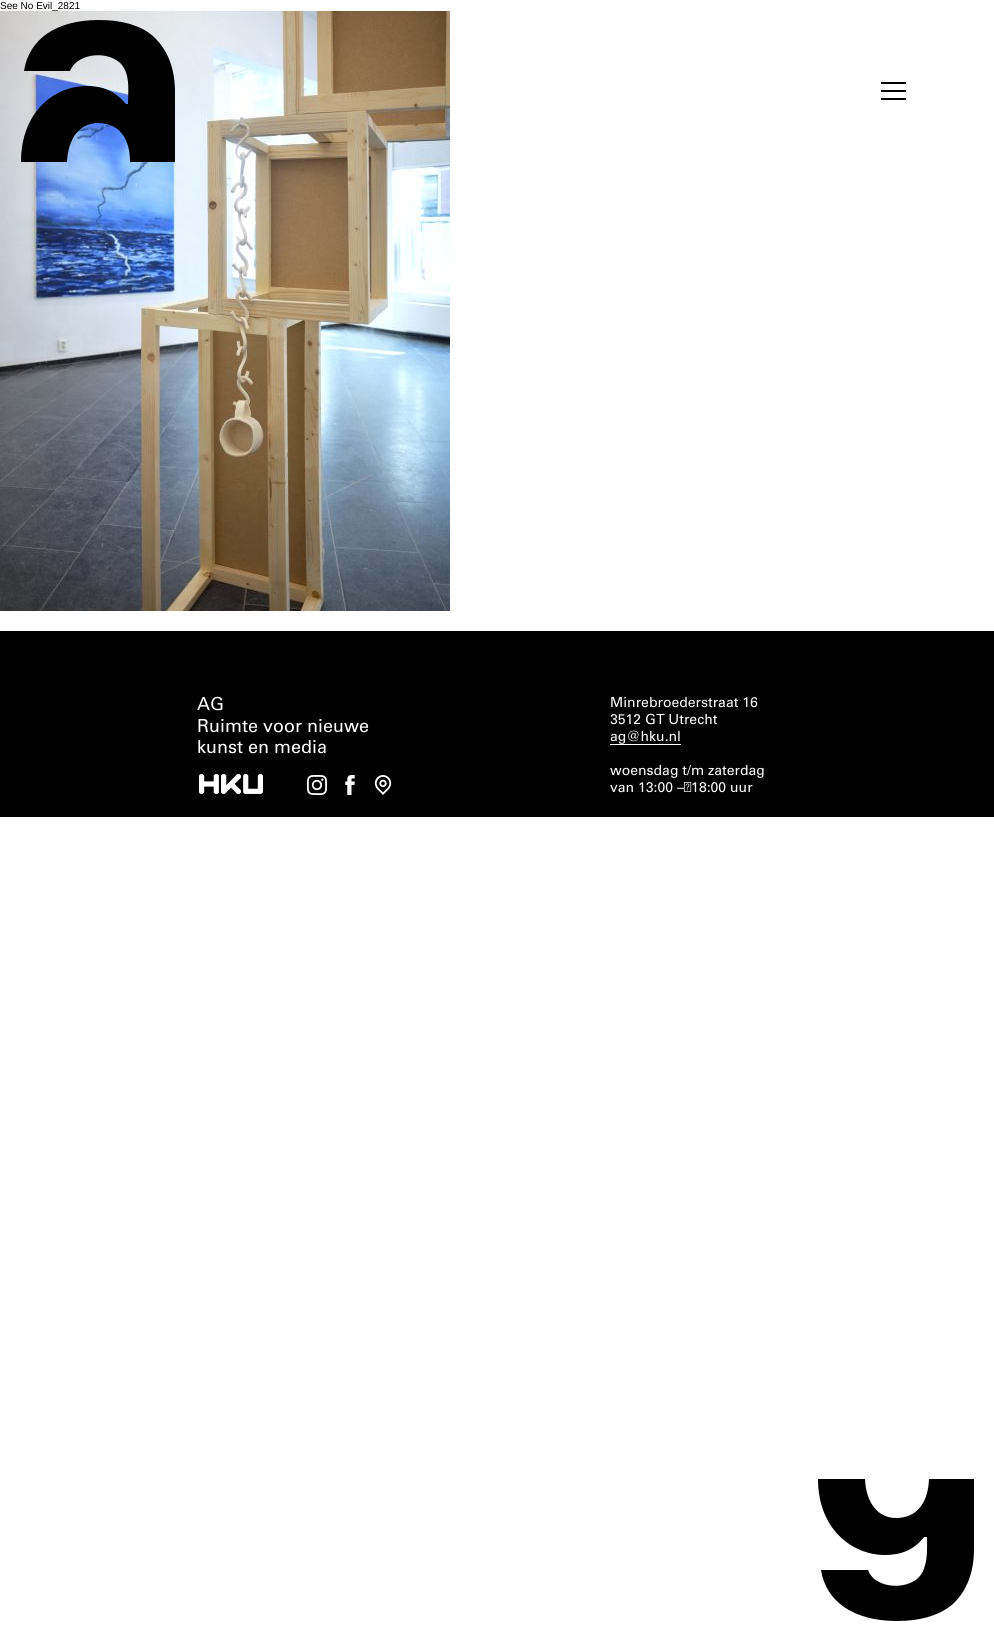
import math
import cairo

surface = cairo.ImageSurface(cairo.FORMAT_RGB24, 994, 1641)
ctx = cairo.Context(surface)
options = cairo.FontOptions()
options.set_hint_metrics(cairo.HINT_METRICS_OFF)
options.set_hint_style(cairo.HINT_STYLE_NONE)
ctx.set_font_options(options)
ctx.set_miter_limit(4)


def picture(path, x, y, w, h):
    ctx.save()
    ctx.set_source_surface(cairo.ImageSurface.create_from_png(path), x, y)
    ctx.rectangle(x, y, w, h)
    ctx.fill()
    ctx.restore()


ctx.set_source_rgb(1, 1, 1)
ctx.paint()
ctx.select_font_face("Liberation Sans")
ctx.set_font_size(10)
ctx.set_source_rgb(0, 0, 0)
ctx.move_to(0, 9)
ctx.show_text("See No Evil_2821")
picture("img1.png", 0, 11, 450, 600)
ctx.new_path()
ctx.move_to(175, 162)
ctx.line_to(130, 162)
ctx.curve_to(130, 137, 118, 123, 98, 123)
ctx.curve_to(80, 123, 68, 138, 67, 162)
ctx.line_to(21, 162)
ctx.curve_to(21, 112, 54, 86, 87, 86)
ctx.curve_to(103, 86, 115, 91, 126, 104)
ctx.line_to(128, 104)
ctx.curve_to(128, 92, 130, 79, 124, 68)
ctx.curve_to(114, 50, 78, 51, 70, 71)
ctx.line_to(24, 71)
ctx.curve_to(29, 39, 56, 20, 99, 20)
ctx.curve_to(123, 20, 143, 26, 155, 38)
ctx.curve_to(168, 51, 175, 69, 175, 92)
ctx.close_path()
ctx.fill()
ctx.rectangle(881, 82, 25, 2)
ctx.fill()
ctx.rectangle(881, 90, 25, 2)
ctx.fill()
ctx.rectangle(881, 98, 25, 2)
ctx.fill()
ctx.rectangle(0, 631, 994, 186)
ctx.fill()
ctx.select_font_face("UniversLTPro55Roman")
ctx.set_font_size(18)
ctx.set_source_rgb(1, 1, 1)
ctx.move_to(197, 710)
ctx.show_text("AG")
ctx.move_to(197, 732)
ctx.show_text("Ruimte voor nieuwe")
ctx.move_to(197, 753)
ctx.show_text("kunst en media")
picture("img2.png", 199, 774, 64, 20)
ctx.set_font_size(14)
ctx.move_to(610, 707)
ctx.show_text("Minrebroederstraat 16")
ctx.move_to(610, 724)
ctx.show_text("3512 GT Utrecht")
ctx.move_to(610, 741)
ctx.show_text("ag@hku.nl")
ctx.rectangle(610, 744, 71, 1)
ctx.fill()
ctx.move_to(610, 775)
ctx.show_text("woensdag t/m zaterdag")
ctx.move_to(610, 792)
ctx.show_text("van 13:00 – 18:00 uur")
picture("img3.png", 307, 775, 20, 20)
picture("img4.png", 345, 775, 10, 20)
picture("img5.png", 374, 775, 18, 20)
ctx.set_source_rgb(0, 0, 0)
ctx.new_path()
ctx.move_to(974, 1479)
ctx.line_to(929, 1479)
ctx.curve_to(928, 1504, 916, 1518, 896, 1518)
ctx.curve_to(878, 1518, 866, 1503, 865, 1479)
ctx.line_to(818, 1479)
ctx.curve_to(818, 1529, 852, 1555, 885, 1555)
ctx.curve_to(901, 1555, 914, 1550, 924, 1537)
ctx.line_to(927, 1537)
ctx.curve_to(927, 1549, 928, 1562, 922, 1573)
ctx.curve_to(912, 1591, 875, 1590, 868, 1570)
ctx.line_to(821, 1570)
ctx.curve_to(826, 1602, 854, 1621, 897, 1621)
ctx.curve_to(921, 1621, 941, 1615, 954, 1603)
ctx.curve_to(967, 1590, 974, 1572, 974, 1549)
ctx.close_path()
ctx.fill()
surface.write_to_png("page.png")
